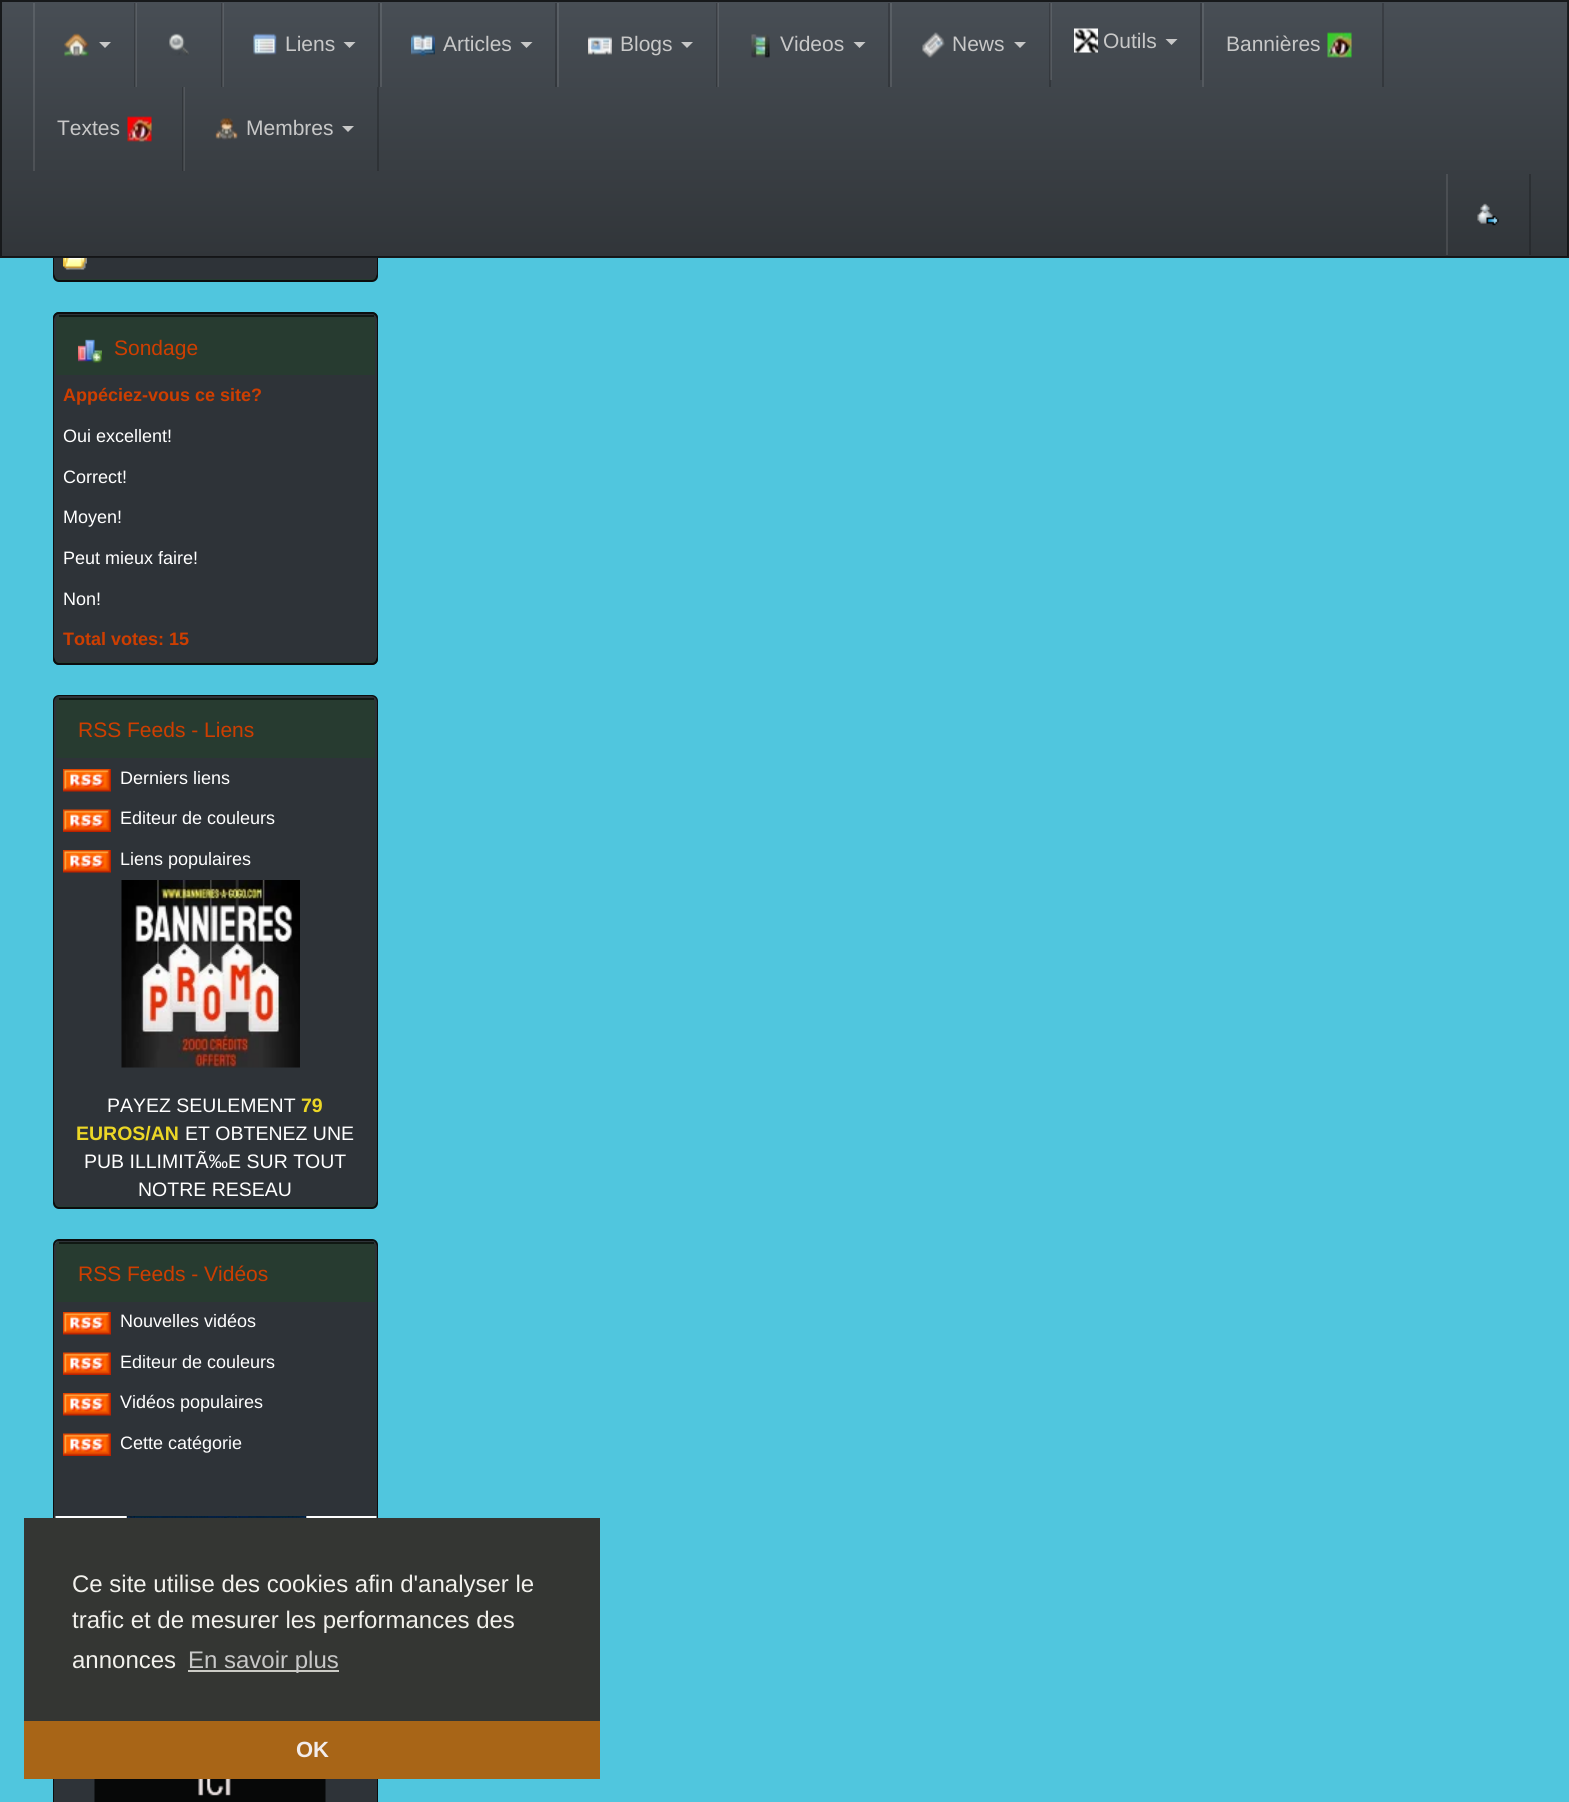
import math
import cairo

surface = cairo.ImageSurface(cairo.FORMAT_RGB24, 1569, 1802)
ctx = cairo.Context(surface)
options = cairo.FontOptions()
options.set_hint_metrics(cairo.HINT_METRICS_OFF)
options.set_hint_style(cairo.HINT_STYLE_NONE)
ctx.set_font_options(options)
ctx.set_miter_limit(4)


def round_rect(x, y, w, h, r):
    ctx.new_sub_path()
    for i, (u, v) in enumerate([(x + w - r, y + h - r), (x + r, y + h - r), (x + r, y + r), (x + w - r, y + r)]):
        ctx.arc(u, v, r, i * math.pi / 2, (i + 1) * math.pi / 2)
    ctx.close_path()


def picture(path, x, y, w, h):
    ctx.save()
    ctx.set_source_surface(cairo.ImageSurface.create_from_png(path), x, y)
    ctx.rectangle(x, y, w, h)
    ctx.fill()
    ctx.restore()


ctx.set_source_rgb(0.314, 0.776, 0.871)
ctx.paint()
ctx.set_source_rgb(0.153, 0.231, 0.188)
round_rect(54, -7, 323, 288, 5)
ctx.fill_preserve()
ctx.set_source_rgb(0.047, 0.051, 0.055)
ctx.stroke()
ctx.set_source_rgb(0.18, 0.2, 0.22)
round_rect(54, -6, 323, 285, 6)
ctx.fill()
ctx.set_source_rgb(0.227, 0.247, 0.267)
ctx.rectangle(0, 0, 1569, 258)
ctx.fill()
gradient = cairo.LinearGradient(785, 1.5, 785, 257)
gradient.add_color_stop_rgba(0, 0.282, 0.306, 0.333, 1)
gradient.add_color_stop_rgba(0.6, 0.227, 0.247, 0.267, 1)
gradient.add_color_stop_rgba(1, 0.192, 0.208, 0.224, 1)
ctx.set_source(gradient)
ctx.rectangle(2, 2, 1566, 255)
ctx.fill()
gradient = cairo.LinearGradient(785, 1.5, 785, 257)
gradient.add_color_stop_rgba(0, 0.353, 0.376, 0.4, 1)
gradient.add_color_stop_rgba(0.6, 0.306, 0.322, 0.341, 1)
gradient.add_color_stop_rgba(1, 0.275, 0.286, 0.302, 1)
ctx.set_source(gradient)
ctx.rectangle(1446, 174, 2, 81)
ctx.fill()
gradient = cairo.LinearGradient(785, 1.5, 785, 257)
gradient.add_color_stop_rgba(0, 0.227, 0.243, 0.267, 1)
gradient.add_color_stop_rgba(0.6, 0.18, 0.196, 0.212, 1)
gradient.add_color_stop_rgba(1, 0.153, 0.165, 0.18, 1)
ctx.set_source(gradient)
ctx.rectangle(1529, 174, 2, 81)
ctx.fill()
gradient = cairo.LinearGradient(785, 1.5, 785, 257)
gradient.add_color_stop_rgba(0, 0.353, 0.376, 0.4, 1)
gradient.add_color_stop_rgba(0.6, 0.306, 0.322, 0.341, 1)
gradient.add_color_stop_rgba(1, 0.275, 0.286, 0.302, 1)
ctx.set_source(gradient)
ctx.rectangle(33, 87, 2, 84)
ctx.fill()
ctx.rectangle(1202, 3, 2, 84)
ctx.fill()
gradient = cairo.LinearGradient(785, 1.5, 785, 257)
gradient.add_color_stop_rgba(0, 0.227, 0.243, 0.267, 1)
gradient.add_color_stop_rgba(0.6, 0.18, 0.196, 0.212, 1)
gradient.add_color_stop_rgba(1, 0.153, 0.165, 0.18, 1)
ctx.set_source(gradient)
ctx.rectangle(1382, 3, 2, 84)
ctx.fill()
gradient = cairo.LinearGradient(785, 1.5, 785, 257)
gradient.add_color_stop_rgba(0, 0.353, 0.376, 0.4, 1)
gradient.add_color_stop_rgba(0.6, 0.306, 0.322, 0.341, 1)
gradient.add_color_stop_rgba(1, 0.275, 0.286, 0.302, 1)
ctx.set_source(gradient)
ctx.rectangle(1051, 3, 1, 77)
ctx.fill()
gradient = cairo.LinearGradient(785, 1.5, 785, 257)
gradient.add_color_stop_rgba(0, 0.227, 0.243, 0.267, 1)
gradient.add_color_stop_rgba(0.6, 0.18, 0.196, 0.212, 1)
gradient.add_color_stop_rgba(1, 0.153, 0.165, 0.18, 1)
ctx.set_source(gradient)
ctx.rectangle(1200, 3, 2, 77)
ctx.fill()
gradient = cairo.LinearGradient(785, 1.5, 785, 257)
gradient.add_color_stop_rgba(0, 0.353, 0.376, 0.4, 1)
gradient.add_color_stop_rgba(0.6, 0.306, 0.322, 0.341, 1)
gradient.add_color_stop_rgba(1, 0.275, 0.286, 0.302, 1)
ctx.set_source(gradient)
ctx.rectangle(890, 3, 2, 84)
ctx.fill()
gradient = cairo.LinearGradient(785, 1.5, 785, 257)
gradient.add_color_stop_rgba(0, 0.227, 0.243, 0.267, 1)
gradient.add_color_stop_rgba(0.6, 0.18, 0.196, 0.212, 1)
gradient.add_color_stop_rgba(1, 0.153, 0.165, 0.18, 1)
ctx.set_source(gradient)
ctx.rectangle(1049, 3, 2, 84)
ctx.fill()
gradient = cairo.LinearGradient(785, 1.5, 785, 257)
gradient.add_color_stop_rgba(0, 0.306, 0.318, 0.341, 1)
gradient.add_color_stop_rgba(0.6, 0.263, 0.278, 0.29, 1)
gradient.add_color_stop_rgba(1, 0.239, 0.247, 0.263, 1)
ctx.set_source(gradient)
ctx.rectangle(1050, 3, 1, 77)
ctx.fill()
gradient = cairo.LinearGradient(785, 1.5, 785, 257)
gradient.add_color_stop_rgba(0, 0.353, 0.376, 0.4, 1)
gradient.add_color_stop_rgba(0.6, 0.306, 0.322, 0.341, 1)
gradient.add_color_stop_rgba(1, 0.275, 0.286, 0.302, 1)
ctx.set_source(gradient)
ctx.rectangle(718, 3, 1, 84)
ctx.fill()
gradient = cairo.LinearGradient(785, 1.5, 785, 257)
gradient.add_color_stop_rgba(0, 0.227, 0.243, 0.267, 1)
gradient.add_color_stop_rgba(0.6, 0.18, 0.196, 0.212, 1)
gradient.add_color_stop_rgba(1, 0.153, 0.165, 0.18, 1)
ctx.set_source(gradient)
ctx.rectangle(888, 3, 2, 84)
ctx.fill()
gradient = cairo.LinearGradient(785, 1.5, 785, 257)
gradient.add_color_stop_rgba(0, 0.353, 0.376, 0.4, 1)
gradient.add_color_stop_rgba(0.6, 0.306, 0.322, 0.341, 1)
gradient.add_color_stop_rgba(1, 0.275, 0.286, 0.302, 1)
ctx.set_source(gradient)
ctx.rectangle(557, 3, 2, 84)
ctx.fill()
gradient = cairo.LinearGradient(785, 1.5, 785, 257)
gradient.add_color_stop_rgba(0, 0.227, 0.243, 0.267, 1)
gradient.add_color_stop_rgba(0.6, 0.18, 0.196, 0.212, 1)
gradient.add_color_stop_rgba(1, 0.153, 0.165, 0.18, 1)
ctx.set_source(gradient)
ctx.rectangle(716, 3, 1, 84)
ctx.fill()
gradient = cairo.LinearGradient(785, 1.5, 785, 257)
gradient.add_color_stop_rgba(0, 0.306, 0.318, 0.341, 1)
gradient.add_color_stop_rgba(0.6, 0.263, 0.278, 0.29, 1)
gradient.add_color_stop_rgba(1, 0.239, 0.247, 0.263, 1)
ctx.set_source(gradient)
ctx.rectangle(717, 3, 1, 84)
ctx.fill()
gradient = cairo.LinearGradient(785, 1.5, 785, 257)
gradient.add_color_stop_rgba(0, 0.353, 0.376, 0.4, 1)
gradient.add_color_stop_rgba(0.6, 0.306, 0.322, 0.341, 1)
gradient.add_color_stop_rgba(1, 0.275, 0.286, 0.302, 1)
ctx.set_source(gradient)
ctx.rectangle(380, 3, 2, 84)
ctx.fill()
gradient = cairo.LinearGradient(785, 1.5, 785, 257)
gradient.add_color_stop_rgba(0, 0.227, 0.243, 0.267, 1)
gradient.add_color_stop_rgba(0.6, 0.18, 0.196, 0.212, 1)
gradient.add_color_stop_rgba(1, 0.153, 0.165, 0.18, 1)
ctx.set_source(gradient)
ctx.rectangle(555, 3, 2, 84)
ctx.fill()
gradient = cairo.LinearGradient(785, 1.5, 785, 257)
gradient.add_color_stop_rgba(0, 0.353, 0.376, 0.4, 1)
gradient.add_color_stop_rgba(0.6, 0.306, 0.322, 0.341, 1)
gradient.add_color_stop_rgba(1, 0.275, 0.286, 0.302, 1)
ctx.set_source(gradient)
ctx.rectangle(223, 3, 1, 84)
ctx.fill()
gradient = cairo.LinearGradient(785, 1.5, 785, 257)
gradient.add_color_stop_rgba(0, 0.227, 0.243, 0.267, 1)
gradient.add_color_stop_rgba(0.6, 0.18, 0.196, 0.212, 1)
gradient.add_color_stop_rgba(1, 0.153, 0.165, 0.18, 1)
ctx.set_source(gradient)
ctx.rectangle(221, 3, 1, 84)
ctx.fill()
gradient = cairo.LinearGradient(785, 1.5, 785, 257)
gradient.add_color_stop_rgba(0, 0.306, 0.318, 0.341, 1)
gradient.add_color_stop_rgba(0.6, 0.263, 0.278, 0.29, 1)
gradient.add_color_stop_rgba(1, 0.239, 0.247, 0.263, 1)
ctx.set_source(gradient)
ctx.rectangle(222, 3, 1, 84)
ctx.fill()
gradient = cairo.LinearGradient(785, 1.5, 785, 257)
gradient.add_color_stop_rgba(0, 0.353, 0.376, 0.4, 1)
gradient.add_color_stop_rgba(0.6, 0.306, 0.322, 0.341, 1)
gradient.add_color_stop_rgba(1, 0.275, 0.286, 0.302, 1)
ctx.set_source(gradient)
ctx.rectangle(33, 3, 2, 84)
ctx.fill()
ctx.rectangle(1, 1, 1567, 256)
ctx.set_source_rgba(0, 0, 0, 0.6)
ctx.stroke()
ctx.set_source_rgba(0, 0, 0, 0.2)
ctx.rectangle(134, 3, 2, 84)
ctx.fill()
picture("img1.png", 64, 33, 25, 24)
ctx.set_source_rgb(0.784, 0.784, 0.784)
ctx.new_path()
ctx.move_to(99, 42)
ctx.line_to(111, 42)
ctx.line_to(105, 48)
ctx.close_path()
ctx.fill()
ctx.set_source_rgba(1, 1, 1, 0.1)
ctx.rectangle(135, 3, 2, 84)
ctx.fill()
picture("img2.png", 169, 33, 20, 23)
ctx.set_source_rgba(0, 0, 0, 0.2)
ctx.rectangle(378, 3, 2, 84)
ctx.fill()
picture("img3.png", 253, 33, 24, 22)
ctx.select_font_face("Liberation Sans")
ctx.set_font_size(21)
ctx.set_source_rgb(0.784, 0.784, 0.784)
ctx.move_to(285, 51)
ctx.show_text("Liens")
ctx.new_path()
ctx.move_to(343.5, 42)
ctx.line_to(355.5, 42)
ctx.line_to(349.5, 48)
ctx.close_path()
ctx.fill()
picture("img4.png", 411, 34, 24, 23)
ctx.move_to(443, 51)
ctx.show_text("Articles")
ctx.new_path()
ctx.move_to(520.5, 42)
ctx.line_to(532.5, 42)
ctx.line_to(526.5, 48)
ctx.close_path()
ctx.fill()
picture("img5.png", 588, 36, 24, 19)
ctx.move_to(620, 51)
ctx.show_text("Blogs")
ctx.new_path()
ctx.move_to(681, 42)
ctx.line_to(693, 42)
ctx.line_to(687, 48)
ctx.close_path()
ctx.fill()
picture("img6.png", 751, 34, 19, 24)
ctx.move_to(780, 51)
ctx.show_text("Videos")
ctx.new_path()
ctx.move_to(853.5, 42)
ctx.line_to(865.5, 42)
ctx.line_to(859.5, 48)
ctx.close_path()
ctx.fill()
picture("img7.png", 922, 32, 23, 26)
ctx.move_to(952, 51)
ctx.show_text("News")
ctx.new_path()
ctx.move_to(1014, 42)
ctx.line_to(1026, 42)
ctx.line_to(1020, 48)
ctx.close_path()
ctx.fill()
picture("img8.png", 1074, 28, 24, 25)
ctx.move_to(1103, 48)
ctx.show_text("Outils")
ctx.new_path()
ctx.move_to(1165.5, 39)
ctx.line_to(1177.5, 39)
ctx.line_to(1171.5, 45)
ctx.close_path()
ctx.fill()
ctx.move_to(1226, 51)
ctx.show_text("Bannières")
picture("img9.png", 1327, 32, 25, 26)
ctx.set_source_rgba(0, 0, 0, 0.2)
ctx.rectangle(182, 87, 2, 84)
ctx.fill()
ctx.set_source_rgb(0.784, 0.784, 0.784)
ctx.move_to(57, 135)
ctx.show_text("Textes")
picture("img10.png", 127, 116, 25, 26)
ctx.set_source_rgba(0, 0, 0, 0.2)
ctx.rectangle(377, 87, 2, 84)
ctx.fill()
ctx.set_source_rgba(1, 1, 1, 0.1)
ctx.rectangle(183, 87, 2, 84)
ctx.fill()
picture("img11.png", 215, 118, 23, 22)
ctx.set_source_rgb(0.784, 0.784, 0.784)
ctx.move_to(246, 135)
ctx.show_text("Membres")
ctx.new_path()
ctx.move_to(342, 126)
ctx.line_to(354, 126)
ctx.line_to(348, 132)
ctx.close_path()
ctx.fill()
picture("img12.png", 1477, 203, 22, 23)
picture("img13.png", 63, 258, 24, 12)
ctx.set_source_rgb(0.153, 0.231, 0.188)
round_rect(53, 312, 325, 353, 6)
ctx.fill()
ctx.set_source_rgb(0.145, 0.22, 0.18)
ctx.new_path()
ctx.move_to(58, 315)
ctx.line_to(372, 315)
ctx.curve_to(374, 315, 376, 317, 376, 320)
ctx.line_to(376, 661)
ctx.curve_to(377, 660, 377, 659, 377, 658)
ctx.line_to(377, 319)
ctx.curve_to(377, 316, 375, 314, 372, 314)
ctx.line_to(59, 314)
ctx.curve_to(56, 314, 54, 316, 54, 319)
ctx.line_to(54, 320)
ctx.curve_to(54, 317, 56, 315, 58, 315)
ctx.close_path()
ctx.fill()
round_rect(54, 313, 323, 351, 5)
ctx.set_source_rgb(0.047, 0.051, 0.055)
ctx.stroke()
ctx.set_source_rgb(0.18, 0.2, 0.22)
round_rect(54, 314, 323, 348, 6)
ctx.fill()
ctx.set_source_rgb(0.153, 0.231, 0.188)
ctx.new_path()
ctx.move_to(61, 315)
ctx.line_to(370, 315)
ctx.curve_to(373, 315, 375, 317, 375, 320)
ctx.line_to(375, 375)
ctx.line_to(56, 375)
ctx.line_to(56, 320)
ctx.curve_to(56, 317, 58, 315, 61, 315)
ctx.close_path()
ctx.fill()
ctx.set_source_rgba(0, 0, 0, 0.6)
ctx.rectangle(59, 315, 315, 2)
ctx.fill()
picture("img14.png", 78, 339, 24, 24)
ctx.set_source_rgb(0.808, 0.243, 0)
ctx.move_to(114, 355)
ctx.show_text("Sondage")
ctx.select_font_face("Liberation Sans", cairo.FONT_SLANT_NORMAL, cairo.FONT_WEIGHT_BOLD)
ctx.set_font_size(18)
ctx.move_to(63, 401)
ctx.show_text("Appéciez-vous ce site?")
ctx.select_font_face("Liberation Sans")
ctx.set_source_rgb(1, 1, 1)
ctx.move_to(63, 442)
ctx.show_text("Oui excellent!")
ctx.move_to(63, 483)
ctx.show_text("Correct!")
ctx.move_to(63, 523)
ctx.show_text("Moyen!")
ctx.move_to(63, 564)
ctx.show_text("Peut mieux faire!")
ctx.move_to(63, 605)
ctx.show_text("Non!")
ctx.select_font_face("Liberation Sans", cairo.FONT_SLANT_NORMAL, cairo.FONT_WEIGHT_BOLD)
ctx.set_source_rgb(0.808, 0.243, 0)
ctx.move_to(63, 645)
ctx.show_text("Total votes: 15")
ctx.set_source_rgb(0.153, 0.231, 0.188)
round_rect(54, 696, 323, 512, 5)
ctx.fill_preserve()
ctx.set_source_rgb(0.047, 0.051, 0.055)
ctx.stroke()
ctx.set_source_rgb(0.18, 0.2, 0.22)
round_rect(54, 696, 323, 510, 6)
ctx.fill()
ctx.set_source_rgb(0.153, 0.231, 0.188)
ctx.new_path()
ctx.move_to(61, 698)
ctx.line_to(370, 698)
ctx.curve_to(373, 698, 375, 700, 375, 703)
ctx.line_to(375, 758)
ctx.line_to(56, 758)
ctx.line_to(56, 703)
ctx.curve_to(56, 700, 58, 698, 61, 698)
ctx.close_path()
ctx.fill()
ctx.set_source_rgba(0, 0, 0, 0.6)
ctx.rectangle(59, 698, 315, 2)
ctx.fill()
ctx.select_font_face("Liberation Sans")
ctx.set_font_size(21)
ctx.set_source_rgb(0.808, 0.243, 0)
ctx.move_to(78, 737)
ctx.show_text("RSS Feeds - Liens")
picture("img15.png", 63, 769, 48, 23)
ctx.set_font_size(18)
ctx.set_source_rgb(1, 1, 1)
ctx.move_to(120, 784)
ctx.show_text("Derniers liens")
picture("img16.png", 63, 809, 48, 23)
ctx.move_to(120, 824)
ctx.show_text("Editeur de couleurs")
picture("img15.png", 63, 850, 48, 23)
ctx.move_to(120, 865)
ctx.show_text("Liens populaires")
picture("img17.png", 121, 880, 179, 188)
ctx.set_font_size(19.5)
ctx.move_to(107, 1112)
ctx.show_text("PAYEZ SEULEMENT")
ctx.select_font_face("Liberation Sans", cairo.FONT_SLANT_NORMAL, cairo.FONT_WEIGHT_BOLD)
ctx.set_source_rgb(0.922, 0.843, 0.149)
ctx.move_to(301, 1112)
ctx.show_text("79")
ctx.move_to(76, 1140)
ctx.show_text("EUROS/AN")
ctx.select_font_face("Liberation Sans")
ctx.set_source_rgb(1, 1, 1)
ctx.move_to(185, 1140)
ctx.show_text("ET OBTENEZ UNE")
ctx.move_to(84, 1168)
ctx.show_text("PUB ILLIMITÃ‰E SUR TOUT")
ctx.move_to(138, 1196)
ctx.show_text("NOTRE RESEAU")
ctx.set_source_rgb(0.145, 0.22, 0.18)
ctx.new_path()
ctx.move_to(58, 1242)
ctx.line_to(372, 1242)
ctx.curve_to(374, 1242, 376, 1244, 376, 1246)
ctx.line_to(376, 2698)
ctx.line_to(375, 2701)
ctx.curve_to(376, 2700, 377, 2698, 377, 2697)
ctx.line_to(377, 1246)
ctx.curve_to(377, 1243, 375, 1241, 372, 1241)
ctx.line_to(59, 1241)
ctx.curve_to(56, 1241, 54, 1243, 54, 1246)
ctx.curve_to(54, 1244, 56, 1242, 58, 1242)
ctx.close_path()
ctx.fill()
round_rect(54, 1240, 323, 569, 5)
ctx.set_source_rgb(0.047, 0.051, 0.055)
ctx.stroke()
ctx.set_source_rgb(0.18, 0.2, 0.22)
round_rect(54, 1241, 323, 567, 6)
ctx.fill()
ctx.set_source_rgb(0.153, 0.231, 0.188)
ctx.new_path()
ctx.move_to(61, 1242)
ctx.line_to(370, 1242)
ctx.curve_to(373, 1242, 375, 1244, 375, 1247)
ctx.line_to(375, 1302)
ctx.line_to(56, 1302)
ctx.line_to(56, 1247)
ctx.curve_to(56, 1244, 58, 1242, 61, 1242)
ctx.close_path()
ctx.fill()
ctx.set_source_rgba(0, 0, 0, 0.6)
ctx.rectangle(59, 1242, 315, 2)
ctx.fill()
ctx.set_font_size(21)
ctx.set_source_rgb(0.808, 0.243, 0)
ctx.move_to(78, 1281)
ctx.show_text("RSS Feeds - Vidéos")
picture("img15.png", 63, 1312, 48, 23)
ctx.set_font_size(18)
ctx.set_source_rgb(1, 1, 1)
ctx.move_to(120, 1327)
ctx.show_text("Nouvelles vidéos")
picture("img16.png", 63, 1352, 48, 23)
ctx.move_to(120, 1368)
ctx.show_text("Editeur de couleurs")
picture("img15.png", 63, 1393, 48, 23)
ctx.move_to(120, 1408)
ctx.show_text("Vidéos populaires")
picture("img16.png", 63, 1433, 48, 23)
ctx.move_to(120, 1449)
ctx.show_text("Cette catégorie")
picture("img18.png", 55, 1516, 322, 2)
picture("img19.png", 94, 1779, 232, 23)
ctx.set_source_rgb(0.204, 0.212, 0.2)
ctx.rectangle(24, 1518, 576, 203)
ctx.fill()
ctx.set_font_size(24)
ctx.set_source_rgb(0.949, 0.945, 0.922)
ctx.move_to(72, 1592)
ctx.show_text("Ce site utilise des cookies afin d'analyser le")
ctx.move_to(72, 1628)
ctx.show_text("trafic et de mesurer les performances des")
ctx.move_to(72, 1668)
ctx.show_text("annonces")
ctx.set_source_rgb(0.8, 0.8, 0.776)
ctx.rectangle(188, 1670, 151, 2)
ctx.fill()
ctx.set_source_rgb(0.784, 0.784, 0.784)
ctx.move_to(188, 1668)
ctx.show_text("En savoir plus")
ctx.set_source_rgb(0.659, 0.396, 0.09)
ctx.rectangle(24, 1721, 576, 58)
ctx.fill()
ctx.select_font_face("Liberation Sans", cairo.FONT_SLANT_NORMAL, cairo.FONT_WEIGHT_BOLD)
ctx.set_font_size(22)
ctx.set_source_rgb(0.949, 0.922, 0.918)
ctx.move_to(296, 1757)
ctx.show_text("OK")
surface.write_to_png("page.png")
